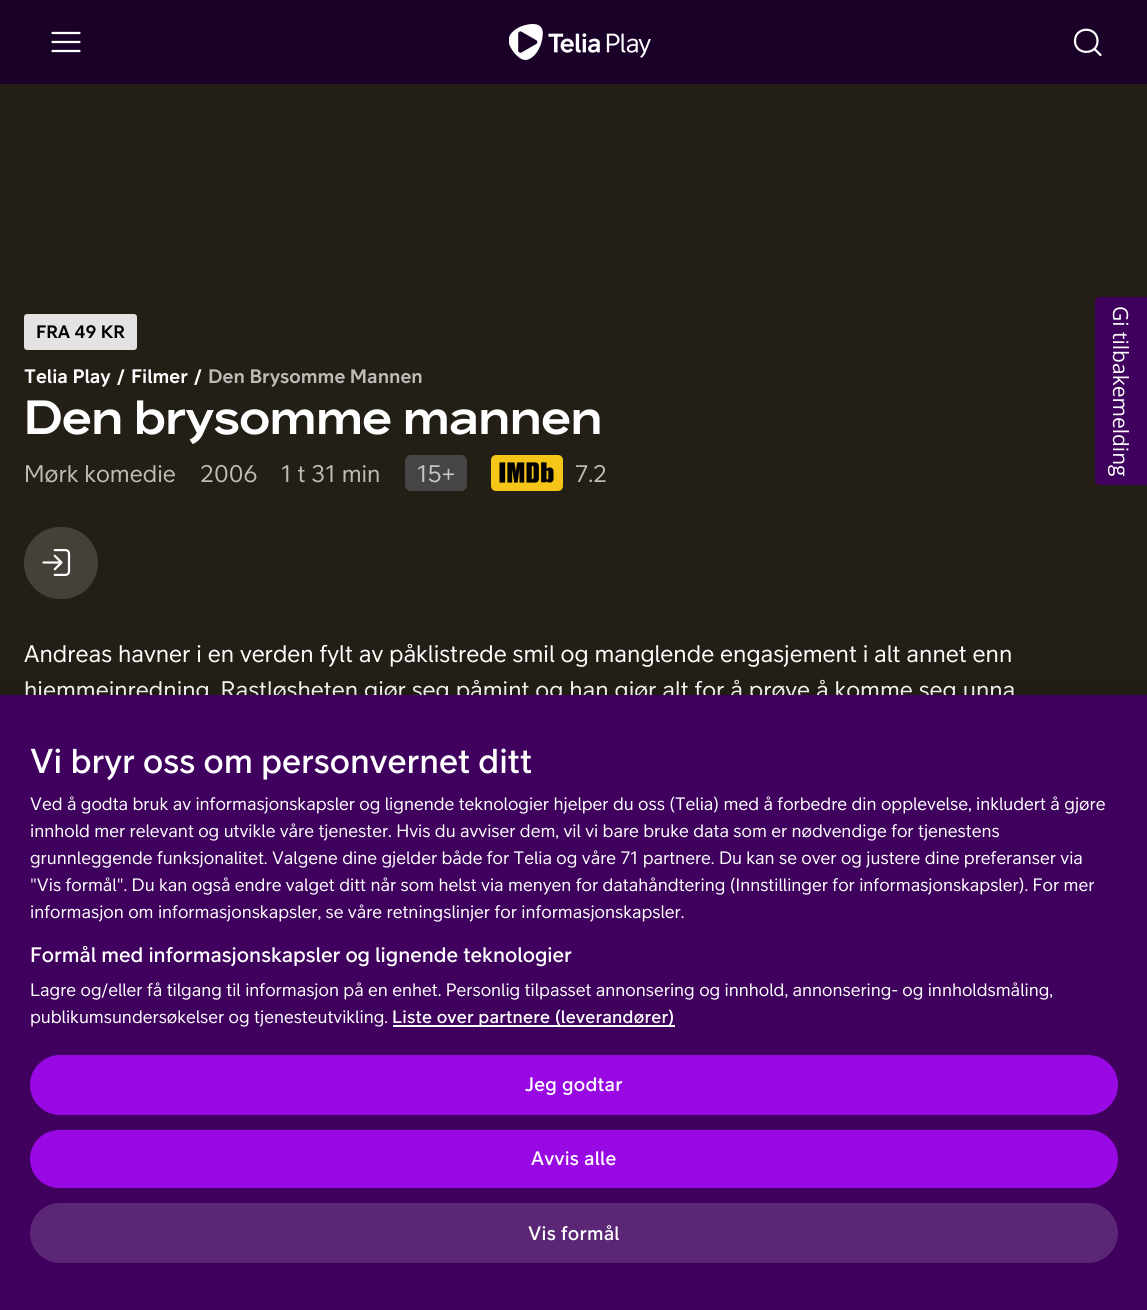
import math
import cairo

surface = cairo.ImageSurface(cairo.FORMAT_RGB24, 1147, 1310)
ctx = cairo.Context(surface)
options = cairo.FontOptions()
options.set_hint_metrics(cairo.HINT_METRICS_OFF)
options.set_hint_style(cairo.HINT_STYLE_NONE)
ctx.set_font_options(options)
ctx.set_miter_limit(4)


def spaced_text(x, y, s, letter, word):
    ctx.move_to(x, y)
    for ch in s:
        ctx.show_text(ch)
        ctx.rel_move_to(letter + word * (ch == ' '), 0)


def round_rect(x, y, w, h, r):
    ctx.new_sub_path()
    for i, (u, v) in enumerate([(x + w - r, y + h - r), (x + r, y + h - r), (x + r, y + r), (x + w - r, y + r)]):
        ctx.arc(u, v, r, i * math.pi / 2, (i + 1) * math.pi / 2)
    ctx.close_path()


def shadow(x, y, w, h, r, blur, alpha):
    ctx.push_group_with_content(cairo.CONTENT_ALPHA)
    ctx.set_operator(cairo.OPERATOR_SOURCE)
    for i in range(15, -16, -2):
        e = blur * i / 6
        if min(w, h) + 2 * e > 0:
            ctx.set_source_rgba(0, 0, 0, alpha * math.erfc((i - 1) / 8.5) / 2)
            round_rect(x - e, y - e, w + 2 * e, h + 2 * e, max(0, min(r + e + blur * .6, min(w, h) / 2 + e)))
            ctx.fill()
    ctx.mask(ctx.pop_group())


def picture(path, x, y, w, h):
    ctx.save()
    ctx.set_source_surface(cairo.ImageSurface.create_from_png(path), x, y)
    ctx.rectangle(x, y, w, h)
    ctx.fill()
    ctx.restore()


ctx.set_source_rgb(0.141, 0.122, 0.086)
ctx.paint()
ctx.set_source_rgb(0.102, 0.004, 0.157)
ctx.rectangle(0, 0, 1147, 84)
ctx.fill()
ctx.new_path()
ctx.move_to(52.5, 33)
ctx.line_to(79.5, 33)
ctx.move_to(52.5, 42)
ctx.line_to(79.5, 42)
ctx.move_to(52.5, 51)
ctx.line_to(79.5, 51)
ctx.set_source_rgb(1, 1, 1)
ctx.set_line_width(2.2)
ctx.set_line_cap(cairo.LINE_CAP_ROUND)
ctx.stroke()
picture("img1.png", 509, 24, 142, 36)
ctx.new_path()
ctx.move_to(1100.5, 55)
ctx.line_to(1094.5, 49)
ctx.move_to(1097.5, 41)
ctx.curve_to(1097.5, 55.5, 1075, 55.5, 1075, 41)
ctx.curve_to(1075, 26, 1097.5, 26, 1097.5, 41)
ctx.close_path()
ctx.stroke()
ctx.set_source_rgb(0.894, 0.89, 0.886)
round_rect(24, 314, 113, 36, 3)
ctx.fill()
ctx.select_font_face("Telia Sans", cairo.FONT_SLANT_NORMAL, cairo.FONT_WEIGHT_BOLD)
ctx.set_font_size(18)
ctx.set_source_rgb(0, 0, 0)
ctx.move_to(36, 338)
ctx.show_text("FRA 49 KR")
ctx.set_font_size(19.5)
ctx.set_source_rgb(1, 1, 1)
ctx.move_to(24, 383)
ctx.show_text("Telia Play")
ctx.move_to(117, 383)
ctx.show_text("/")
ctx.move_to(131, 383)
ctx.show_text("Filmer")
ctx.move_to(194, 383)
ctx.show_text("/")
ctx.set_source_rgb(0.741, 0.737, 0.725)
ctx.move_to(208, 383)
ctx.show_text("Den Brysomme Mannen")
ctx.select_font_face("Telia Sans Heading", cairo.FONT_SLANT_NORMAL, cairo.FONT_WEIGHT_BOLD)
ctx.set_font_size(48)
ctx.set_source_rgb(1, 1, 1)
ctx.move_to(24, 434)
ctx.show_text("Den brysomme mannen")
ctx.select_font_face("Telia Sans")
ctx.set_font_size(24)
ctx.set_source_rgb(0.741, 0.737, 0.725)
ctx.move_to(24, 482)
ctx.show_text("Mørk komedie")
ctx.move_to(200, 482)
ctx.show_text("2006")
ctx.move_to(281, 482)
ctx.show_text("1 t 31 min")
ctx.set_source_rgb(0.275, 0.271, 0.263)
round_rect(405, 455, 62, 36, 6)
ctx.fill()
ctx.set_source_rgb(0.784, 0.78, 0.78)
ctx.move_to(417, 482)
ctx.show_text("15+")
picture("img2.png", 491, 455, 72, 36)
ctx.set_source_rgb(0.741, 0.737, 0.725)
ctx.move_to(575, 482)
ctx.show_text("7.2")
ctx.set_source_rgb(0.271, 0.255, 0.224)
round_rect(24, 527, 74, 72, 36)
ctx.fill()
picture("img3.png", 42, 549, 29, 27)
ctx.set_source_rgb(1, 1, 1)
ctx.move_to(24, 662)
ctx.show_text("Andreas havner i en verden fylt av påklistrede smil og manglende engasjement i alt annet enn")
ctx.move_to(24, 698)
ctx.show_text("hjemmeinredning. Rastløsheten gjør seg påmint og han gjør alt for å prøve å komme seg unna")
ctx.set_source_rgb(0.247, 0, 0.369)
ctx.new_path()
ctx.move_to(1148, 297)
ctx.line_to(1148, 485)
ctx.line_to(1100, 485)
ctx.curve_to(1097, 485, 1095, 483, 1095, 480)
ctx.line_to(1095, 302)
ctx.curve_to(1095, 299, 1097, 297, 1100, 297)
ctx.close_path()
ctx.fill()
ctx.select_font_face("Open Sans")
ctx.set_font_size(21)
ctx.set_source_rgb(1, 1, 1)
ctx.save()
ctx.translate(1113, 306)
ctx.rotate(90 * math.pi / 180)
ctx.move_to(0, 0)
ctx.show_text("Gi tilbakemelding")
ctx.restore()
ctx.set_source_rgb(0, 0, 0)
shadow(0, 695, 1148, 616, 0, 13.5, 0.2)
ctx.set_source_rgb(0.247, 0, 0.369)
ctx.rectangle(0, 695, 1147, 615)
ctx.fill()
ctx.select_font_face("Telia Sans Medium")
ctx.set_font_size(34.5)
ctx.set_source_rgb(1, 1, 1)
ctx.move_to(30, 773)
ctx.show_text("Vi bryr oss om personvernet ditt")
ctx.select_font_face("Telia Sans")
ctx.set_font_size(18)
ctx.move_to(30, 810)
ctx.show_text("Ved å godta bruk av informasjonskapsler og lignende teknologier hjelper du oss (Telia) med å forbedre din opplevelse, inkludert å gjøre")
ctx.move_to(30, 837)
ctx.show_text("innhold mer relevant og utvikle våre tjenester. Hvis du avviser dem, vil vi bare bruke data som er nødvendige for tjenestens")
ctx.move_to(30, 864)
ctx.show_text("grunnleggende funksjonalitet. Valgene dine gjelder både for Telia og våre 71 partnere. Du kan se over og justere dine preferanser via")
ctx.move_to(30, 891)
ctx.show_text("\"Vis formål\". Du kan også endre valget ditt når som helst via menyen for datahåndtering (Innstillinger for informasjonskapsler). For mer")
ctx.move_to(30, 918)
ctx.show_text("informasjon om informasjonskapsler, se våre retningslinjer for informasjonskapsler.")
ctx.select_font_face("Telia Sans Medium")
ctx.set_font_size(21)
ctx.move_to(30, 962)
ctx.show_text("Formål med informasjonskapsler og lignende teknologier")
ctx.select_font_face("Telia Sans")
ctx.set_font_size(18)
ctx.move_to(30, 996)
ctx.show_text("Lagre og/eller få tilgang til informasjon på en enhet. Personlig tilpasset annonsering og innhold, annonsering- og innholdsmåling,")
ctx.move_to(30, 1023)
ctx.show_text("publikumsundersøkelser og tjenesteutvikling.")
ctx.rectangle(393, 1025, 282, 2)
ctx.fill()
ctx.select_font_face("Telia Sans Medium")
spaced_text(392, 1023, "Liste over partnere (leverandører)", 0.2, 0)
ctx.set_source_rgb(0.6, 0.039, 0.89)
round_rect(30, 1055, 1088, 60, 30)
ctx.fill()
ctx.set_font_size(19.5)
ctx.set_source_rgb(1, 1, 1)
spaced_text(525, 1091, "Jeg godtar", 0.25, 0)
ctx.set_source_rgb(0.6, 0.039, 0.89)
round_rect(30, 1130, 1088, 58, 29)
ctx.fill()
ctx.set_source_rgb(1, 1, 1)
spaced_text(531, 1165, "Avvis alle", 0.25, 0)
ctx.set_source_rgb(0.361, 0.149, 0.463)
round_rect(30, 1203, 1088, 60, 30)
ctx.fill()
ctx.set_source_rgb(1, 1, 1)
spaced_text(528, 1240, "Vis formål", 0.25, 0)
surface.write_to_png("page.png")
